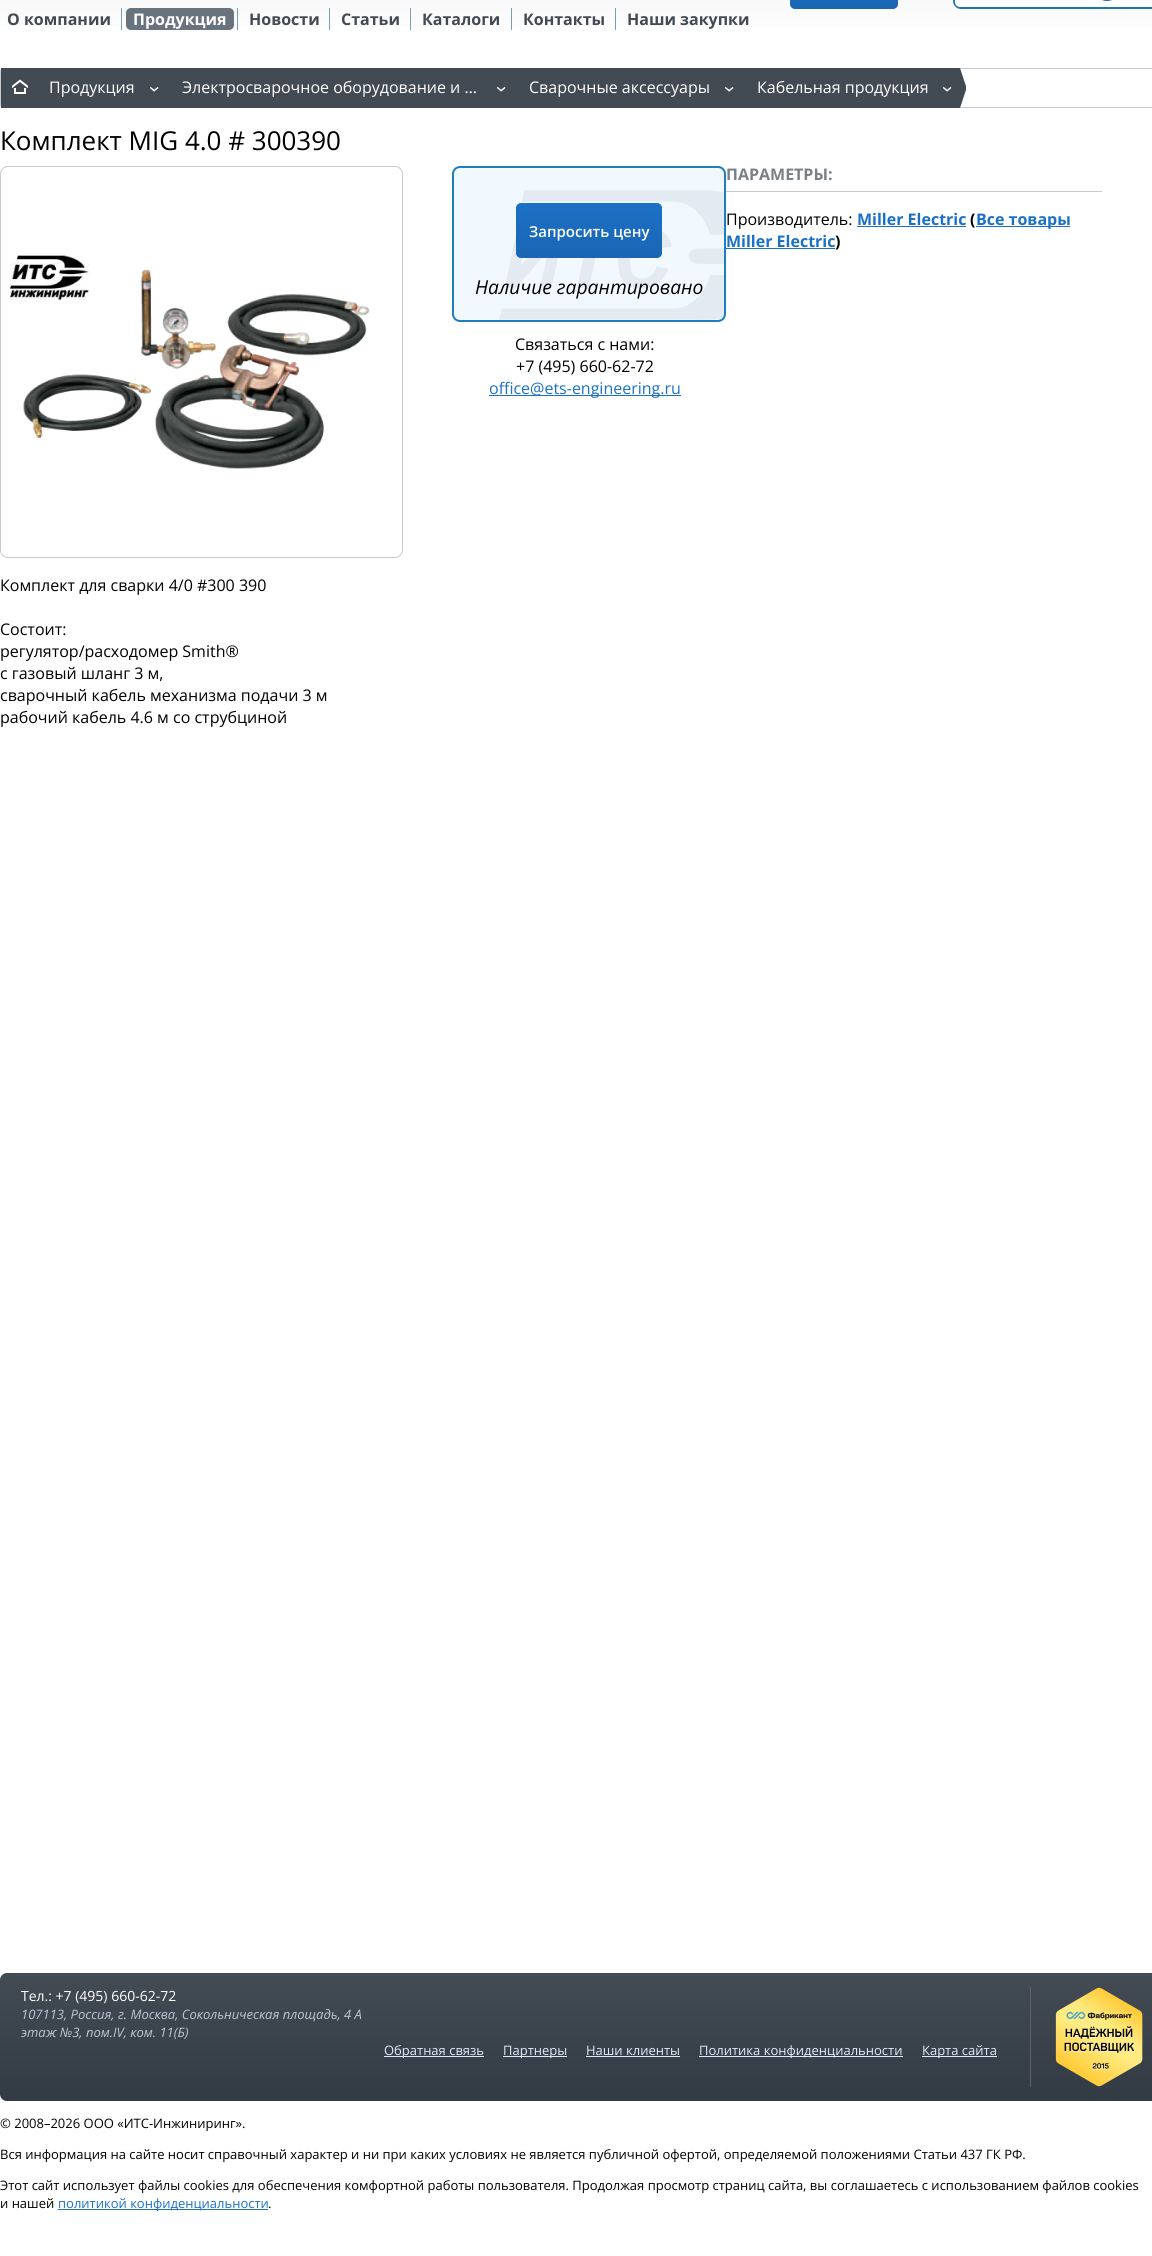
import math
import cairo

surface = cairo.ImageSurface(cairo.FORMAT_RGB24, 1152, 2256)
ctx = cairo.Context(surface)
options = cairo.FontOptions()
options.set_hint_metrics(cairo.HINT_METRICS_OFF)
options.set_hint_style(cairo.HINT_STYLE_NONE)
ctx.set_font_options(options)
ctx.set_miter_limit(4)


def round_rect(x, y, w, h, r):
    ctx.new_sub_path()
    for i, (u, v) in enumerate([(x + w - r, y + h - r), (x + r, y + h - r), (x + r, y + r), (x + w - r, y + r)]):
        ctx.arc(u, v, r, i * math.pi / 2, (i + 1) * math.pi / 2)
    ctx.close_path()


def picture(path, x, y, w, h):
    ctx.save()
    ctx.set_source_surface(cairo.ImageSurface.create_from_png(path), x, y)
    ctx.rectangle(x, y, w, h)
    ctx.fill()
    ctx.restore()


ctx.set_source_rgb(1, 1, 1)
ctx.paint()
gradient = cairo.LinearGradient(585, -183, 585, 46)
gradient.add_color_stop_rgba(0, 0.882, 0.882, 0.882, 1)
gradient.add_color_stop_rgba(1, 1, 1, 1, 1)
ctx.set_source(gradient)
ctx.rectangle(0, 0, 1152, 27)
ctx.fill()
gradient = cairo.LinearGradient(844, -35, 844, 9)
gradient.add_color_stop_rgba(0, 0.106, 0.443, 0.78, 1)
gradient.add_color_stop_rgba(0.5, 0.106, 0.42, 0.741, 1)
gradient.add_color_stop_rgba(1, 0.098, 0.4, 0.702, 1)
ctx.set_source(gradient)
round_rect(790, -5, 108, 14, 5)
ctx.fill()
gradient = cairo.LinearGradient(1062, -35, 1062, 9)
gradient.add_color_stop_rgba(0, 0.118, 0.592, 0.878, 1)
gradient.add_color_stop_rgba(1, 0.114, 0.455, 0.69, 1)
ctx.set_source(gradient)
round_rect(953, -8, 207, 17, 8)
ctx.fill()
ctx.set_source_rgb(1, 1, 1)
round_rect(955, -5, 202, 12, 5)
ctx.fill()
ctx.set_source_rgb(0.067, 0.392, 0.745)
round_rect(1093, -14, 28, 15, 14)
ctx.fill()
ctx.select_font_face("Open Sans", cairo.FONT_SLANT_NORMAL, cairo.FONT_WEIGHT_BOLD)
ctx.set_font_size(16)
ctx.set_source_rgb(0.259, 0.29, 0.325)
ctx.move_to(7, 25)
ctx.show_text("О компании")
ctx.set_source_rgb(0.463, 0.62, 0.682)
ctx.rectangle(121, 8, 1, 22)
ctx.fill()
ctx.set_source_rgb(0.412, 0.451, 0.49)
round_rect(126, 8, 108, 22, 5)
ctx.fill()
ctx.set_source_rgb(1, 1, 1)
ctx.move_to(133, 25)
ctx.show_text("Продукция")
ctx.set_source_rgb(0.463, 0.62, 0.682)
ctx.rectangle(237, 8, 1, 22)
ctx.fill()
ctx.set_source_rgb(0.259, 0.29, 0.325)
ctx.move_to(249, 25)
ctx.show_text("Новости")
ctx.set_source_rgb(0.463, 0.62, 0.682)
ctx.rectangle(329, 8, 1, 22)
ctx.fill()
ctx.set_source_rgb(0.259, 0.29, 0.325)
ctx.move_to(341, 25)
ctx.show_text("Статьи")
ctx.set_source_rgb(0.463, 0.62, 0.682)
ctx.rectangle(410, 8, 1, 22)
ctx.fill()
ctx.set_source_rgb(0.259, 0.29, 0.325)
ctx.move_to(422, 25)
ctx.show_text("Каталоги")
ctx.set_source_rgb(0.463, 0.62, 0.682)
ctx.rectangle(511, 8, 1, 22)
ctx.fill()
ctx.set_source_rgb(0.259, 0.29, 0.325)
ctx.move_to(523, 25)
ctx.show_text("Контакты")
ctx.set_source_rgb(0.463, 0.62, 0.682)
ctx.rectangle(615, 8, 1, 22)
ctx.fill()
ctx.set_source_rgb(0.259, 0.29, 0.325)
ctx.move_to(627, 25)
ctx.show_text("Наши закупки")
round_rect(0.5, 68.5, 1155, 39, 2.5)
ctx.set_source_rgb(0.788, 0.788, 0.788)
ctx.set_line_width(1)
ctx.stroke()
ctx.set_source_rgb(0.259, 0.29, 0.325)
ctx.rectangle(1, 68, 32, 40)
ctx.fill()
picture("img1.png", 12, 79, 16, 15)
picture("img2.png", 33, 68, 6, 40)
ctx.rectangle(39, 68, 127, 40)
ctx.fill()
picture("img3.png", 34, 68, 5, 40)
ctx.select_font_face("Open Sans")
ctx.set_source_rgb(1, 1, 1)
ctx.move_to(49, 93)
ctx.show_text("Продукция")
picture("img4.png", 150, 86, 9, 6)
picture("img2.png", 166, 68, 6, 40)
ctx.set_source_rgb(0.259, 0.29, 0.325)
ctx.rectangle(172, 68, 341, 40)
ctx.fill()
picture("img3.png", 167, 68, 5, 40)
ctx.set_source_rgb(1, 1, 1)
ctx.move_to(182, 93)
ctx.show_text("Электросварочное оборудование и …")
picture("img4.png", 497, 86, 9, 6)
picture("img2.png", 513, 68, 6, 40)
ctx.set_source_rgb(0.259, 0.29, 0.325)
ctx.rectangle(519, 68, 222, 40)
ctx.fill()
picture("img3.png", 514, 68, 5, 40)
ctx.set_source_rgb(1, 1, 1)
ctx.move_to(529, 93)
ctx.show_text("Сварочные аксессуары")
picture("img4.png", 725, 86, 9, 6)
picture("img2.png", 741, 68, 6, 40)
ctx.set_source_rgb(0.259, 0.29, 0.325)
ctx.rectangle(747, 68, 212, 40)
ctx.fill()
picture("img3.png", 742, 68, 5, 40)
ctx.set_source_rgb(1, 1, 1)
ctx.move_to(757, 93)
ctx.show_text("Кабельная продукция")
picture("img4.png", 943, 86, 9, 6)
picture("img5.png", 959, 68, 7, 40)
ctx.set_font_size(26)
ctx.set_source_rgb(0, 0, 0)
ctx.move_to(0, 150)
ctx.show_text("Комплект MIG 4.0 # 300390")
round_rect(0.5, 166.5, 402, 391, 7.5)
ctx.set_source_rgb(0.788, 0.788, 0.788)
ctx.stroke()
picture("img6.png", 10, 255, 360, 214)
ctx.rectangle(726, 191, 376, 1)
ctx.fill()
ctx.select_font_face("Open Sans", cairo.FONT_SLANT_NORMAL, cairo.FONT_WEIGHT_BOLD)
ctx.set_font_size(16)
ctx.set_source_rgb(0.475, 0.502, 0.529)
ctx.move_to(726, 180)
ctx.show_text("ПАРАМЕТРЫ:")
ctx.select_font_face("Open Sans")
ctx.set_source_rgb(0, 0, 0)
ctx.move_to(726, 225)
ctx.show_text("Производитель:")
ctx.select_font_face("Open Sans", cairo.FONT_SLANT_NORMAL, cairo.FONT_WEIGHT_BOLD)
ctx.set_source_rgb(0.106, 0.443, 0.78)
ctx.move_to(857, 225)
ctx.show_text("Miller Electric")
ctx.rectangle(857, 226, 109, 1)
ctx.fill()
ctx.set_source_rgb(0, 0, 0)
ctx.move_to(970, 225)
ctx.show_text("(")
ctx.set_source_rgb(0.106, 0.443, 0.78)
ctx.rectangle(976, 226, 94, 1)
ctx.fill()
ctx.move_to(976, 225)
ctx.show_text("Все товары")
ctx.move_to(726, 247)
ctx.show_text("Miller Electric")
ctx.set_source_rgb(0, 0, 0)
ctx.move_to(835, 247)
ctx.show_text(")")
ctx.set_source_rgb(0.106, 0.443, 0.78)
ctx.rectangle(726, 248, 109, 1)
ctx.fill()
ctx.set_source_rgb(0.945, 0.976, 1)
round_rect(452, 166, 274, 156, 8)
ctx.fill()
picture("img7.png", 499, 190, 225, 130)
round_rect(453, 167, 272, 154, 7)
ctx.set_source_rgb(0.114, 0.498, 0.749)
ctx.set_line_width(2)
ctx.stroke()
gradient = cairo.LinearGradient(589, 203, 589, 258)
gradient.add_color_stop_rgba(0, 0.106, 0.443, 0.78, 1)
gradient.add_color_stop_rgba(0.5, 0.106, 0.42, 0.741, 1)
gradient.add_color_stop_rgba(1, 0.098, 0.4, 0.702, 1)
ctx.set_source(gradient)
round_rect(516, 203, 146, 55, 5)
ctx.fill()
ctx.select_font_face("Open Sans SemiBold")
ctx.set_font_size(15)
ctx.set_source_rgb(1, 1, 1)
ctx.move_to(529, 237)
ctx.show_text("Запросить цену")
ctx.select_font_face("Open Sans", cairo.FONT_SLANT_ITALIC)
ctx.set_font_size(19.25)
ctx.set_source_rgb(0, 0, 0)
ctx.move_to(475, 294)
ctx.show_text("Наличие гарантировано")
ctx.select_font_face("Open Sans")
ctx.set_font_size(16)
ctx.move_to(515, 350)
ctx.show_text("Связаться с нами:")
ctx.move_to(516, 372)
ctx.show_text("+7 (495) 660-62-72")
ctx.set_source_rgb(0.106, 0.443, 0.78)
ctx.rectangle(489, 395, 192, 1)
ctx.fill()
ctx.move_to(489, 394)
ctx.show_text("office@ets-engineering.ru")
ctx.set_source_rgb(0, 0, 0)
ctx.move_to(0, 591)
ctx.show_text("Комплект для сварки 4/0 #300 390")
ctx.move_to(0, 635)
ctx.show_text("Состоит:")
ctx.move_to(0, 657)
ctx.show_text("регулятор/расходомер Smith®")
ctx.move_to(0, 679)
ctx.show_text("с газовый шланг 3 м,")
ctx.move_to(0, 701)
ctx.show_text("сварочный кабель механизма подачи 3 м")
ctx.move_to(0, 723)
ctx.show_text("рабочий кабель 4.6 м со струбциной")
gradient = cairo.LinearGradient(585, 1973, 585, 2101)
gradient.add_color_stop_rgba(0, 0.263, 0.294, 0.329, 1)
gradient.add_color_stop_rgba(1, 0.196, 0.227, 0.267, 1)
ctx.set_source(gradient)
round_rect(0, 1973, 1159, 128, 7)
ctx.fill()
ctx.set_font_size(14)
ctx.set_source_rgb(1, 1, 1)
ctx.move_to(21, 2001)
ctx.show_text("Тел.: +7 (495) 660-62-72")
ctx.select_font_face("Open Sans", cairo.FONT_SLANT_ITALIC)
ctx.set_font_size(13)
ctx.set_source_rgb(0.737, 0.78, 0.831)
ctx.move_to(21, 2019)
ctx.show_text("107113, Россия, г. Москва, Сокольническая площадь, 4 А")
ctx.move_to(21, 2037)
ctx.show_text("этаж №3, пом.IV, ком. 11(Б)")
ctx.set_source_rgb(0.357, 0.384, 0.416)
ctx.rectangle(1030, 1987, 1, 100)
ctx.fill()
picture("img8.png", 1055, 1987, 88, 100)
ctx.set_source_rgb(0.871, 0.918, 0.976)
ctx.rectangle(384, 2056, 100, 1)
ctx.fill()
ctx.select_font_face("Open Sans")
ctx.move_to(384, 2055)
ctx.show_text("Обратная связь")
ctx.rectangle(503, 2056, 64, 1)
ctx.fill()
ctx.move_to(503, 2055)
ctx.show_text("Партнеры")
ctx.move_to(586, 2055)
ctx.show_text("Наши клиенты")
ctx.rectangle(586, 2056, 94, 1)
ctx.fill()
ctx.rectangle(699, 2056, 204, 1)
ctx.fill()
ctx.move_to(699, 2055)
ctx.show_text("Политика конфиденциальности")
ctx.rectangle(922, 2056, 75, 1)
ctx.fill()
ctx.move_to(922, 2055)
ctx.show_text("Карта сайта")
ctx.set_source_rgb(0, 0, 0)
ctx.move_to(0, 2128)
ctx.show_text("© 2008–2026 ООО «ИТС-Инжиниринг».")
ctx.move_to(0, 2159)
ctx.show_text("Вся информация на сайте носит справочный характер и ни при каких условиях не является публичной офертой, определяемой положениями Статьи 437 ГК РФ.")
ctx.move_to(0, 2190)
ctx.show_text("Этот сайт использует файлы cookies для обеспечения комфортной работы пользователя. Продолжая просмотр страниц сайта, вы соглашаетесь с использованием файлов cookies")
ctx.move_to(0, 2208)
ctx.show_text("и нашей")
ctx.set_source_rgb(0.106, 0.443, 0.78)
ctx.rectangle(58, 2209, 210, 1)
ctx.fill()
ctx.move_to(58, 2208)
ctx.show_text("политикой конфиденциальности")
ctx.set_source_rgb(0, 0, 0)
ctx.move_to(268, 2208)
ctx.show_text(".")
surface.write_to_png("page.png")
